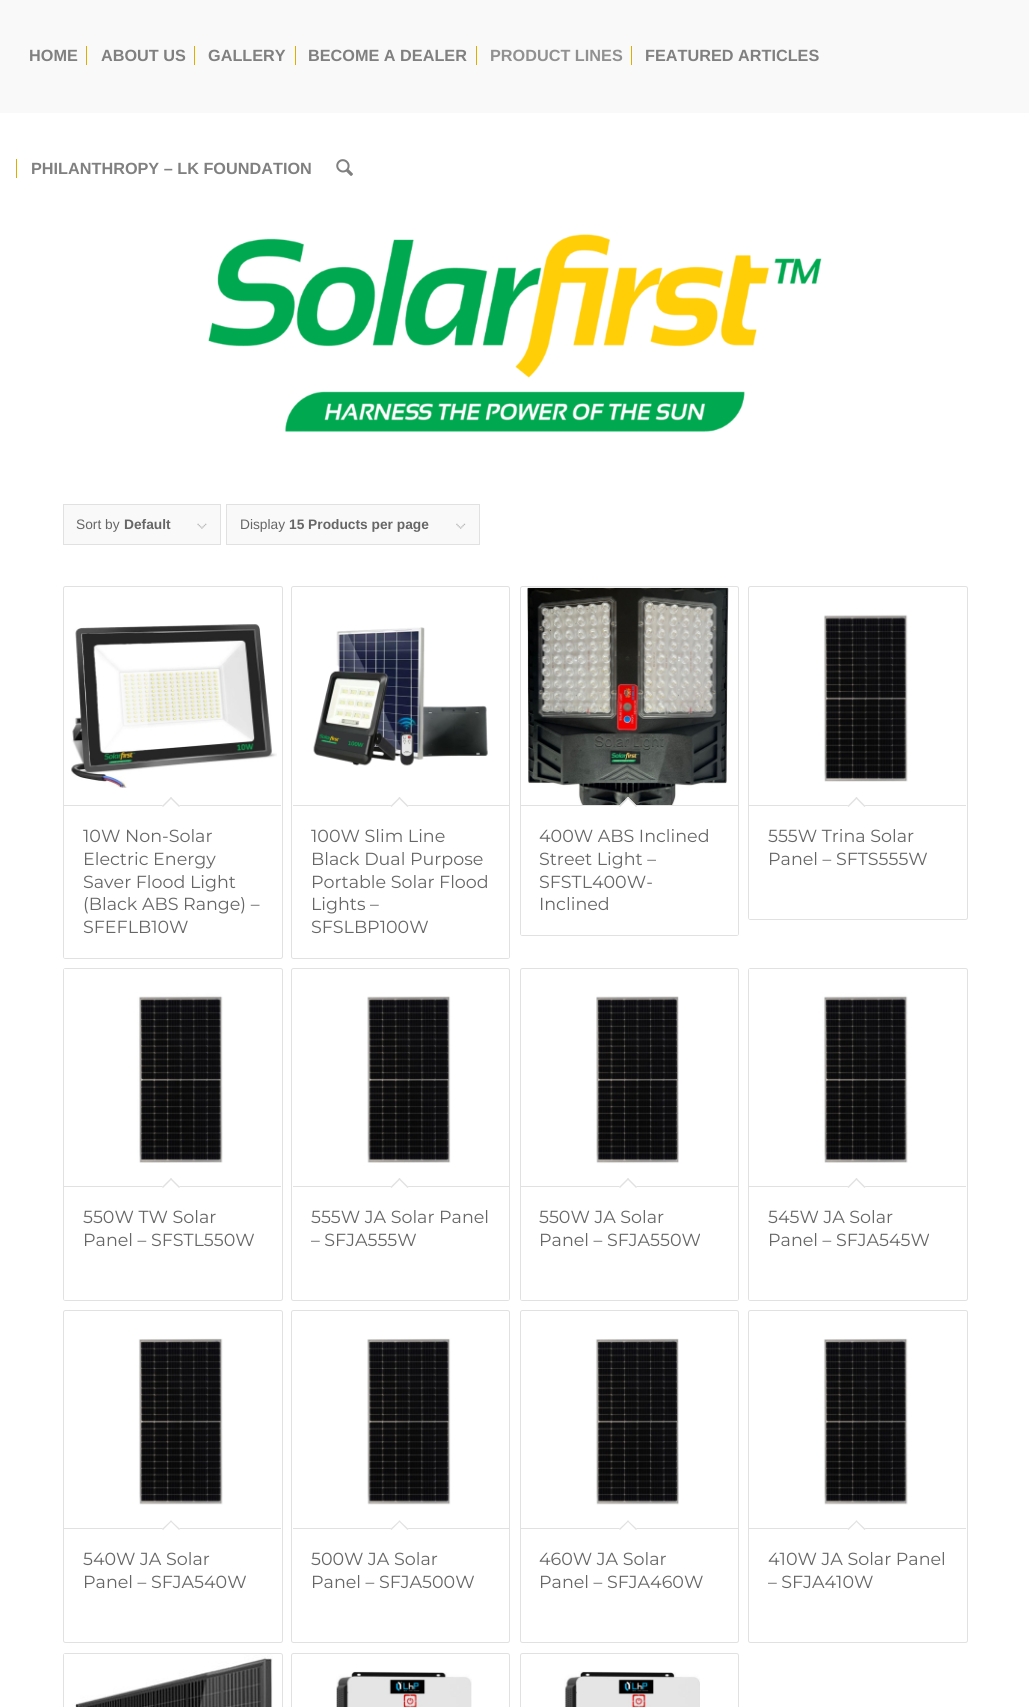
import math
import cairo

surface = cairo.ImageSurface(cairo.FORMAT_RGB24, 1029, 1707)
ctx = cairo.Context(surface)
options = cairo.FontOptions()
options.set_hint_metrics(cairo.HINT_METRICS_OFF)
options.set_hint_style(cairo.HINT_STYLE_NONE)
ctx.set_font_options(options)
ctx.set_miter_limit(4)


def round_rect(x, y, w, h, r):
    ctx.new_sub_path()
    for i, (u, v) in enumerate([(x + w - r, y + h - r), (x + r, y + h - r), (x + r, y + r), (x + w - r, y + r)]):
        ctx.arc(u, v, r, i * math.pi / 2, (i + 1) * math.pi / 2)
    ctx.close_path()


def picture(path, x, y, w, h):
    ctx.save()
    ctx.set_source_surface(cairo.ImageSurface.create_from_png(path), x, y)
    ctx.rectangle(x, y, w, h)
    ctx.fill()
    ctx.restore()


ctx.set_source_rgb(1, 1, 1)
ctx.paint()
ctx.set_source_rgb(0.973, 0.973, 0.973)
ctx.rectangle(0, 0, 1029, 113)
ctx.fill()
ctx.select_font_face("Liberation Sans", cairo.FONT_SLANT_NORMAL, cairo.FONT_WEIGHT_BOLD)
ctx.set_font_size(16.25)
ctx.set_source_rgb(0.502, 0.502, 0.502)
ctx.move_to(29, 61)
ctx.show_text("HOME")
ctx.move_to(101, 61)
ctx.show_text("ABOUT US")
ctx.set_source_rgb(0.859, 0.686, 0)
ctx.rectangle(86, 46, 1, 19)
ctx.fill()
ctx.set_source_rgb(0.502, 0.502, 0.502)
ctx.move_to(208, 61)
ctx.show_text("GALLERY")
ctx.set_source_rgb(0.859, 0.686, 0)
ctx.rectangle(194, 46, 1, 19)
ctx.fill()
ctx.set_source_rgb(0.502, 0.502, 0.502)
ctx.move_to(308, 61)
ctx.show_text("BECOME A DEALER")
ctx.set_source_rgb(0.859, 0.686, 0)
ctx.rectangle(295, 46, 1, 19)
ctx.fill()
ctx.set_source_rgb(0.569, 0.569, 0.569)
ctx.move_to(490, 61)
ctx.show_text("PRODUCT LINES")
ctx.set_source_rgb(0.859, 0.686, 0)
ctx.rectangle(476, 46, 1, 19)
ctx.fill()
ctx.set_source_rgb(0.502, 0.502, 0.502)
ctx.move_to(645, 61)
ctx.show_text("FEATURED ARTICLES")
ctx.set_source_rgb(0.859, 0.686, 0)
ctx.rectangle(631, 46, 1, 19)
ctx.fill()
ctx.set_source_rgb(0.502, 0.502, 0.502)
ctx.move_to(31, 174)
ctx.show_text("PHILANTHROPY – LK FOUNDATION")
ctx.set_source_rgb(0.859, 0.686, 0)
ctx.rectangle(16, 159, 1, 19)
ctx.fill()
picture("img1.png", 336, 159, 17, 17)
picture("img2.png", 208, 234, 614, 198)
ctx.set_source_rgb(0.973, 0.973, 0.973)
ctx.rectangle(64, 505, 156, 39)
ctx.fill()
picture("img3.png", 197, 523, 10, 6)
ctx.rectangle(63.5, 504.5, 157, 40)
ctx.set_source_rgb(0.882, 0.882, 0.882)
ctx.set_line_width(1)
ctx.stroke()
ctx.select_font_face("Liberation Sans")
ctx.set_font_size(13.75)
ctx.set_source_rgb(0.4, 0.4, 0.4)
ctx.move_to(76, 529)
ctx.show_text("Sort by")
ctx.select_font_face("Liberation Sans", cairo.FONT_SLANT_NORMAL, cairo.FONT_WEIGHT_BOLD)
ctx.move_to(124, 529)
ctx.show_text("Default")
ctx.set_source_rgb(0.973, 0.973, 0.973)
ctx.rectangle(227, 505, 252, 39)
ctx.fill()
picture("img4.png", 456, 523, 10, 6)
ctx.rectangle(226.5, 504.5, 253, 40)
ctx.set_source_rgb(0.882, 0.882, 0.882)
ctx.stroke()
ctx.select_font_face("Liberation Sans")
ctx.set_source_rgb(0.4, 0.4, 0.4)
ctx.move_to(240, 529)
ctx.show_text("Display")
ctx.select_font_face("Liberation Sans", cairo.FONT_SLANT_NORMAL, cairo.FONT_WEIGHT_BOLD)
ctx.move_to(289, 529)
ctx.show_text("15 Products per page")
round_rect(63.5, 586.5, 219, 372, 2)
ctx.set_source_rgb(0.882, 0.882, 0.882)
ctx.stroke()
picture("img5.png", 71, 624, 206, 164)
ctx.set_source_rgb(1, 1, 1)
ctx.new_path()
ctx.move_to(64, 805)
ctx.line_to(281, 805)
ctx.line_to(281, 957)
ctx.curve_to(281, 957.5, 280.5, 958, 280, 958)
ctx.line_to(65, 958)
ctx.curve_to(64.5, 958, 64, 957.5, 64, 957)
ctx.close_path()
ctx.fill()
ctx.set_source_rgb(0.882, 0.882, 0.882)
ctx.rectangle(64, 805, 217, 1)
ctx.fill()
ctx.set_source_rgb(1, 1, 1)
ctx.new_path()
ctx.move_to(171, 797)
ctx.line_to(180, 806)
ctx.line_to(171, 815)
ctx.line_to(162, 806)
ctx.close_path()
ctx.fill()
ctx.set_source_rgb(0.882, 0.882, 0.882)
ctx.new_path()
ctx.move_to(171, 797)
ctx.line_to(180, 806)
ctx.line_to(179, 807)
ctx.line_to(170, 798)
ctx.close_path()
ctx.fill()
ctx.new_path()
ctx.move_to(171, 797)
ctx.line_to(172, 798)
ctx.line_to(163, 807)
ctx.line_to(162, 806)
ctx.close_path()
ctx.fill()
ctx.select_font_face("Montserrat Thin")
ctx.set_font_size(17.5)
ctx.set_source_rgb(0.4, 0.4, 0.4)
ctx.move_to(83, 842)
ctx.show_text("10W Non-Solar")
ctx.move_to(83, 865)
ctx.show_text("Electric Energy")
ctx.move_to(83, 888)
ctx.show_text("Saver Flood Light")
ctx.move_to(83, 910)
ctx.show_text("(Black ABS Range) –")
ctx.move_to(83, 933)
ctx.show_text("SFEFLB10W")
round_rect(291.5, 586.5, 218, 372, 2)
ctx.set_source_rgb(0.882, 0.882, 0.882)
ctx.stroke()
picture("img6.png", 313, 627, 175, 139)
ctx.set_source_rgb(1, 1, 1)
ctx.new_path()
ctx.move_to(293, 805)
ctx.line_to(509, 805)
ctx.line_to(509, 957)
ctx.curve_to(509, 957.5, 508.5, 958, 508, 958)
ctx.line_to(294, 958)
ctx.curve_to(293.5, 958, 293, 957.5, 293, 957)
ctx.close_path()
ctx.fill()
ctx.set_source_rgb(0.882, 0.882, 0.882)
ctx.rectangle(293, 805, 216, 1)
ctx.fill()
ctx.set_source_rgb(1, 1, 1)
ctx.new_path()
ctx.move_to(399.5, 797)
ctx.line_to(408.5, 806)
ctx.line_to(399.5, 815)
ctx.line_to(390.5, 806)
ctx.close_path()
ctx.fill()
ctx.set_source_rgb(0.882, 0.882, 0.882)
ctx.new_path()
ctx.move_to(399.5, 797)
ctx.line_to(408.5, 806)
ctx.line_to(407.5, 807)
ctx.line_to(398.5, 798)
ctx.close_path()
ctx.fill()
ctx.new_path()
ctx.move_to(399.5, 797)
ctx.line_to(400.5, 798)
ctx.line_to(391.5, 807)
ctx.line_to(390.5, 806)
ctx.close_path()
ctx.fill()
ctx.set_source_rgb(0.4, 0.4, 0.4)
ctx.move_to(311, 842)
ctx.show_text("100W Slim Line")
ctx.move_to(311, 865)
ctx.show_text("Black Dual Purpose")
ctx.move_to(311, 888)
ctx.show_text("Portable Solar Flood")
ctx.move_to(311, 910)
ctx.show_text("Lights –")
ctx.move_to(311, 933)
ctx.show_text("SFSLBP100W")
round_rect(520.5, 586.5, 218, 349, 2)
ctx.set_source_rgb(0.882, 0.882, 0.882)
ctx.stroke()
picture("img7.png", 527, 587, 202, 218)
ctx.set_source_rgb(1, 1, 1)
ctx.new_path()
ctx.move_to(521, 805)
ctx.line_to(738, 805)
ctx.line_to(738, 934)
ctx.curve_to(738, 934.5, 737.5, 935, 737, 935)
ctx.line_to(522, 935)
ctx.curve_to(521.5, 935, 521, 934.5, 521, 934)
ctx.close_path()
ctx.fill()
ctx.set_source_rgb(0.882, 0.882, 0.882)
ctx.rectangle(521, 805, 217, 1)
ctx.fill()
ctx.set_source_rgb(1, 1, 1)
ctx.new_path()
ctx.move_to(628, 797)
ctx.line_to(637, 806)
ctx.line_to(628, 815)
ctx.line_to(619, 806)
ctx.close_path()
ctx.fill()
ctx.set_source_rgb(0.882, 0.882, 0.882)
ctx.new_path()
ctx.move_to(628, 797)
ctx.line_to(637, 806)
ctx.line_to(636, 807)
ctx.line_to(627, 798)
ctx.close_path()
ctx.fill()
ctx.new_path()
ctx.move_to(628, 797)
ctx.line_to(629, 798)
ctx.line_to(620, 807)
ctx.line_to(619, 806)
ctx.close_path()
ctx.fill()
ctx.set_source_rgb(0.4, 0.4, 0.4)
ctx.move_to(539, 842)
ctx.show_text("400W ABS Inclined")
ctx.move_to(539, 865)
ctx.show_text("Street Light –")
ctx.move_to(539, 888)
ctx.show_text("SFSTL400W-")
ctx.move_to(539, 910)
ctx.show_text("Inclined")
round_rect(748.5, 586.5, 219, 333, 2)
ctx.set_source_rgb(0.882, 0.882, 0.882)
ctx.stroke()
picture("img8.png", 823, 614, 85, 168)
ctx.set_source_rgb(1, 1, 1)
ctx.new_path()
ctx.move_to(749, 805)
ctx.line_to(966, 805)
ctx.line_to(966, 918)
ctx.curve_to(966, 918.5, 965.5, 919, 965, 919)
ctx.line_to(750, 919)
ctx.curve_to(749.5, 919, 749, 918.5, 749, 918)
ctx.close_path()
ctx.fill()
ctx.set_source_rgb(0.882, 0.882, 0.882)
ctx.rectangle(749, 805, 217, 1)
ctx.fill()
ctx.set_source_rgb(1, 1, 1)
ctx.new_path()
ctx.move_to(856.5, 797)
ctx.line_to(865.5, 806)
ctx.line_to(856.5, 815)
ctx.line_to(847.5, 806)
ctx.close_path()
ctx.fill()
ctx.set_source_rgb(0.882, 0.882, 0.882)
ctx.new_path()
ctx.move_to(856.5, 797)
ctx.line_to(865.5, 806)
ctx.line_to(864.5, 807)
ctx.line_to(855.5, 798)
ctx.close_path()
ctx.fill()
ctx.new_path()
ctx.move_to(856.5, 797)
ctx.line_to(857.5, 798)
ctx.line_to(848.5, 807)
ctx.line_to(847.5, 806)
ctx.close_path()
ctx.fill()
ctx.set_source_rgb(0.4, 0.4, 0.4)
ctx.move_to(768, 842)
ctx.show_text("555W Trina Solar")
ctx.move_to(768, 865)
ctx.show_text("Panel – SFTS555W")
round_rect(63.5, 968.5, 219, 332, 2)
ctx.set_source_rgb(0.882, 0.882, 0.882)
ctx.stroke()
picture("img9.png", 64, 969, 159, 194)
ctx.set_source_rgb(1, 1, 1)
ctx.new_path()
ctx.move_to(64, 1186)
ctx.line_to(281, 1186)
ctx.line_to(281, 1299)
ctx.curve_to(281, 1299.5, 280.5, 1300, 280, 1300)
ctx.line_to(65, 1300)
ctx.curve_to(64.5, 1300, 64, 1299.5, 64, 1299)
ctx.close_path()
ctx.fill()
ctx.set_source_rgb(0.882, 0.882, 0.882)
ctx.rectangle(64, 1186, 217, 1)
ctx.fill()
ctx.set_source_rgb(1, 1, 1)
ctx.new_path()
ctx.move_to(171, 1178)
ctx.line_to(180, 1187)
ctx.line_to(171, 1196)
ctx.line_to(162, 1187)
ctx.close_path()
ctx.fill()
ctx.set_source_rgb(0.882, 0.882, 0.882)
ctx.new_path()
ctx.move_to(171, 1178)
ctx.line_to(180, 1187)
ctx.line_to(179, 1188)
ctx.line_to(170, 1179)
ctx.close_path()
ctx.fill()
ctx.new_path()
ctx.move_to(171, 1178)
ctx.line_to(172, 1179)
ctx.line_to(163, 1188)
ctx.line_to(162, 1187)
ctx.close_path()
ctx.fill()
ctx.set_source_rgb(0.4, 0.4, 0.4)
ctx.move_to(83, 1223)
ctx.show_text("550W TW Solar")
ctx.move_to(83, 1246)
ctx.show_text("Panel – SFSTL550W")
round_rect(291.5, 968.5, 218, 332, 2)
ctx.set_source_rgb(0.882, 0.882, 0.882)
ctx.stroke()
picture("img10.png", 367, 996, 84, 167)
ctx.set_source_rgb(1, 1, 1)
ctx.new_path()
ctx.move_to(293, 1186)
ctx.line_to(509, 1186)
ctx.line_to(509, 1299)
ctx.curve_to(509, 1299.5, 508.5, 1300, 508, 1300)
ctx.line_to(294, 1300)
ctx.curve_to(293.5, 1300, 293, 1299.5, 293, 1299)
ctx.close_path()
ctx.fill()
ctx.set_source_rgb(0.882, 0.882, 0.882)
ctx.rectangle(293, 1186, 216, 1)
ctx.fill()
ctx.set_source_rgb(1, 1, 1)
ctx.new_path()
ctx.move_to(399.5, 1178)
ctx.line_to(408.5, 1187)
ctx.line_to(399.5, 1196)
ctx.line_to(390.5, 1187)
ctx.close_path()
ctx.fill()
ctx.set_source_rgb(0.882, 0.882, 0.882)
ctx.new_path()
ctx.move_to(399.5, 1178)
ctx.line_to(408.5, 1187)
ctx.line_to(407.5, 1188)
ctx.line_to(398.5, 1179)
ctx.close_path()
ctx.fill()
ctx.new_path()
ctx.move_to(399.5, 1178)
ctx.line_to(400.5, 1179)
ctx.line_to(391.5, 1188)
ctx.line_to(390.5, 1187)
ctx.close_path()
ctx.fill()
ctx.set_source_rgb(0.4, 0.4, 0.4)
ctx.move_to(311, 1223)
ctx.show_text("555W JA Solar Panel")
ctx.move_to(311, 1246)
ctx.show_text("– SFJA555W")
round_rect(520.5, 968.5, 218, 332, 2)
ctx.set_source_rgb(0.882, 0.882, 0.882)
ctx.stroke()
picture("img11.png", 596, 996, 83, 168)
ctx.set_source_rgb(1, 1, 1)
ctx.new_path()
ctx.move_to(521, 1186)
ctx.line_to(738, 1186)
ctx.line_to(738, 1299)
ctx.curve_to(738, 1299.5, 737.5, 1300, 737, 1300)
ctx.line_to(522, 1300)
ctx.curve_to(521.5, 1300, 521, 1299.5, 521, 1299)
ctx.close_path()
ctx.fill()
ctx.set_source_rgb(0.882, 0.882, 0.882)
ctx.rectangle(521, 1186, 217, 1)
ctx.fill()
ctx.set_source_rgb(1, 1, 1)
ctx.new_path()
ctx.move_to(628, 1178)
ctx.line_to(637, 1187)
ctx.line_to(628, 1196)
ctx.line_to(619, 1187)
ctx.close_path()
ctx.fill()
ctx.set_source_rgb(0.882, 0.882, 0.882)
ctx.new_path()
ctx.move_to(628, 1178)
ctx.line_to(637, 1187)
ctx.line_to(636, 1188)
ctx.line_to(627, 1179)
ctx.close_path()
ctx.fill()
ctx.new_path()
ctx.move_to(628, 1178)
ctx.line_to(629, 1179)
ctx.line_to(620, 1188)
ctx.line_to(619, 1187)
ctx.close_path()
ctx.fill()
ctx.set_source_rgb(0.4, 0.4, 0.4)
ctx.move_to(539, 1223)
ctx.show_text("550W JA Solar")
ctx.move_to(539, 1246)
ctx.show_text("Panel – SFJA550W")
round_rect(748.5, 968.5, 219, 332, 2)
ctx.set_source_rgb(0.882, 0.882, 0.882)
ctx.stroke()
picture("img9.png", 749, 969, 159, 194)
ctx.set_source_rgb(1, 1, 1)
ctx.new_path()
ctx.move_to(749, 1186)
ctx.line_to(966, 1186)
ctx.line_to(966, 1299)
ctx.curve_to(966, 1299.5, 965.5, 1300, 965, 1300)
ctx.line_to(750, 1300)
ctx.curve_to(749.5, 1300, 749, 1299.5, 749, 1299)
ctx.close_path()
ctx.fill()
ctx.set_source_rgb(0.882, 0.882, 0.882)
ctx.rectangle(749, 1186, 217, 1)
ctx.fill()
ctx.set_source_rgb(1, 1, 1)
ctx.new_path()
ctx.move_to(856.5, 1178)
ctx.line_to(865.5, 1187)
ctx.line_to(856.5, 1196)
ctx.line_to(847.5, 1187)
ctx.close_path()
ctx.fill()
ctx.set_source_rgb(0.882, 0.882, 0.882)
ctx.new_path()
ctx.move_to(856.5, 1178)
ctx.line_to(865.5, 1187)
ctx.line_to(864.5, 1188)
ctx.line_to(855.5, 1179)
ctx.close_path()
ctx.fill()
ctx.new_path()
ctx.move_to(856.5, 1178)
ctx.line_to(857.5, 1179)
ctx.line_to(848.5, 1188)
ctx.line_to(847.5, 1187)
ctx.close_path()
ctx.fill()
ctx.set_source_rgb(0.4, 0.4, 0.4)
ctx.move_to(768, 1223)
ctx.show_text("545W JA Solar")
ctx.move_to(768, 1246)
ctx.show_text("Panel – SFJA545W")
round_rect(63.5, 1310.5, 219, 332, 2)
ctx.set_source_rgb(0.882, 0.882, 0.882)
ctx.stroke()
picture("img12.png", 138, 1338, 85, 167)
ctx.rectangle(64, 1528, 217, 1)
ctx.fill()
ctx.set_source_rgb(1, 1, 1)
ctx.new_path()
ctx.move_to(171, 1520.5)
ctx.line_to(180, 1529)
ctx.line_to(171, 1538)
ctx.line_to(162, 1529)
ctx.close_path()
ctx.fill()
ctx.set_source_rgb(0.882, 0.882, 0.882)
ctx.new_path()
ctx.move_to(171, 1520.5)
ctx.line_to(180, 1529)
ctx.line_to(179, 1530)
ctx.line_to(170, 1521)
ctx.close_path()
ctx.fill()
ctx.new_path()
ctx.move_to(171, 1520.5)
ctx.line_to(172, 1521)
ctx.line_to(163, 1530)
ctx.line_to(162, 1529)
ctx.close_path()
ctx.fill()
ctx.set_source_rgb(0.4, 0.4, 0.4)
ctx.move_to(83, 1565)
ctx.show_text("540W JA Solar")
ctx.move_to(83, 1588)
ctx.show_text("Panel – SFJA540W")
round_rect(291.5, 1310.5, 218, 332, 2)
ctx.set_source_rgb(0.882, 0.882, 0.882)
ctx.stroke()
picture("img13.png", 367, 1338, 84, 167)
ctx.rectangle(293, 1528, 216, 1)
ctx.fill()
ctx.set_source_rgb(1, 1, 1)
ctx.new_path()
ctx.move_to(399.5, 1520.5)
ctx.line_to(408.5, 1529)
ctx.line_to(399.5, 1538)
ctx.line_to(390.5, 1529)
ctx.close_path()
ctx.fill()
ctx.set_source_rgb(0.882, 0.882, 0.882)
ctx.new_path()
ctx.move_to(399.5, 1520.5)
ctx.line_to(408.5, 1529)
ctx.line_to(407.5, 1530)
ctx.line_to(398.5, 1521)
ctx.close_path()
ctx.fill()
ctx.new_path()
ctx.move_to(399.5, 1520.5)
ctx.line_to(400.5, 1521)
ctx.line_to(391.5, 1530)
ctx.line_to(390.5, 1529)
ctx.close_path()
ctx.fill()
ctx.set_source_rgb(0.4, 0.4, 0.4)
ctx.move_to(311, 1565)
ctx.show_text("500W JA Solar")
ctx.move_to(311, 1588)
ctx.show_text("Panel – SFJA500W")
round_rect(520.5, 1310.5, 218, 332, 2)
ctx.set_source_rgb(0.882, 0.882, 0.882)
ctx.stroke()
picture("img14.png", 595, 1338, 84, 167)
ctx.rectangle(521, 1528, 217, 1)
ctx.fill()
ctx.set_source_rgb(1, 1, 1)
ctx.new_path()
ctx.move_to(628, 1520.5)
ctx.line_to(637, 1529)
ctx.line_to(628, 1538)
ctx.line_to(619, 1529)
ctx.close_path()
ctx.fill()
ctx.set_source_rgb(0.882, 0.882, 0.882)
ctx.new_path()
ctx.move_to(628, 1520.5)
ctx.line_to(637, 1529)
ctx.line_to(636, 1530)
ctx.line_to(627, 1521)
ctx.close_path()
ctx.fill()
ctx.new_path()
ctx.move_to(628, 1520.5)
ctx.line_to(629, 1521)
ctx.line_to(620, 1530)
ctx.line_to(619, 1529)
ctx.close_path()
ctx.fill()
ctx.set_source_rgb(0.4, 0.4, 0.4)
ctx.move_to(539, 1565)
ctx.show_text("460W JA Solar")
ctx.move_to(539, 1588)
ctx.show_text("Panel – SFJA460W")
round_rect(748.5, 1310.5, 219, 332, 2)
ctx.set_source_rgb(0.882, 0.882, 0.882)
ctx.stroke()
picture("img12.png", 823, 1338, 85, 167)
ctx.rectangle(749, 1528, 217, 1)
ctx.fill()
ctx.set_source_rgb(1, 1, 1)
ctx.new_path()
ctx.move_to(856.5, 1520.5)
ctx.line_to(865.5, 1529)
ctx.line_to(856.5, 1538)
ctx.line_to(847.5, 1529)
ctx.close_path()
ctx.fill()
ctx.set_source_rgb(0.882, 0.882, 0.882)
ctx.new_path()
ctx.move_to(856.5, 1520.5)
ctx.line_to(865.5, 1529)
ctx.line_to(864.5, 1530)
ctx.line_to(855.5, 1521)
ctx.close_path()
ctx.fill()
ctx.new_path()
ctx.move_to(856.5, 1520.5)
ctx.line_to(857.5, 1521)
ctx.line_to(848.5, 1530)
ctx.line_to(847.5, 1529)
ctx.close_path()
ctx.fill()
ctx.set_source_rgb(0.4, 0.4, 0.4)
ctx.move_to(768, 1565)
ctx.show_text("410W JA Solar Panel")
ctx.move_to(768, 1588)
ctx.show_text("– SFJA410W")
round_rect(63.5, 1653.5, 219, 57, 2)
ctx.set_source_rgb(0.882, 0.882, 0.882)
ctx.stroke()
picture("img15.png", 64, 1654, 209, 53)
round_rect(291.5, 1653.5, 218, 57, 2)
ctx.stroke()
picture("img16.png", 336, 1671, 136, 36)
round_rect(520.5, 1653.5, 218, 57, 2)
ctx.stroke()
picture("img17.png", 564, 1671, 136, 36)
surface.write_to_png("page.png")
